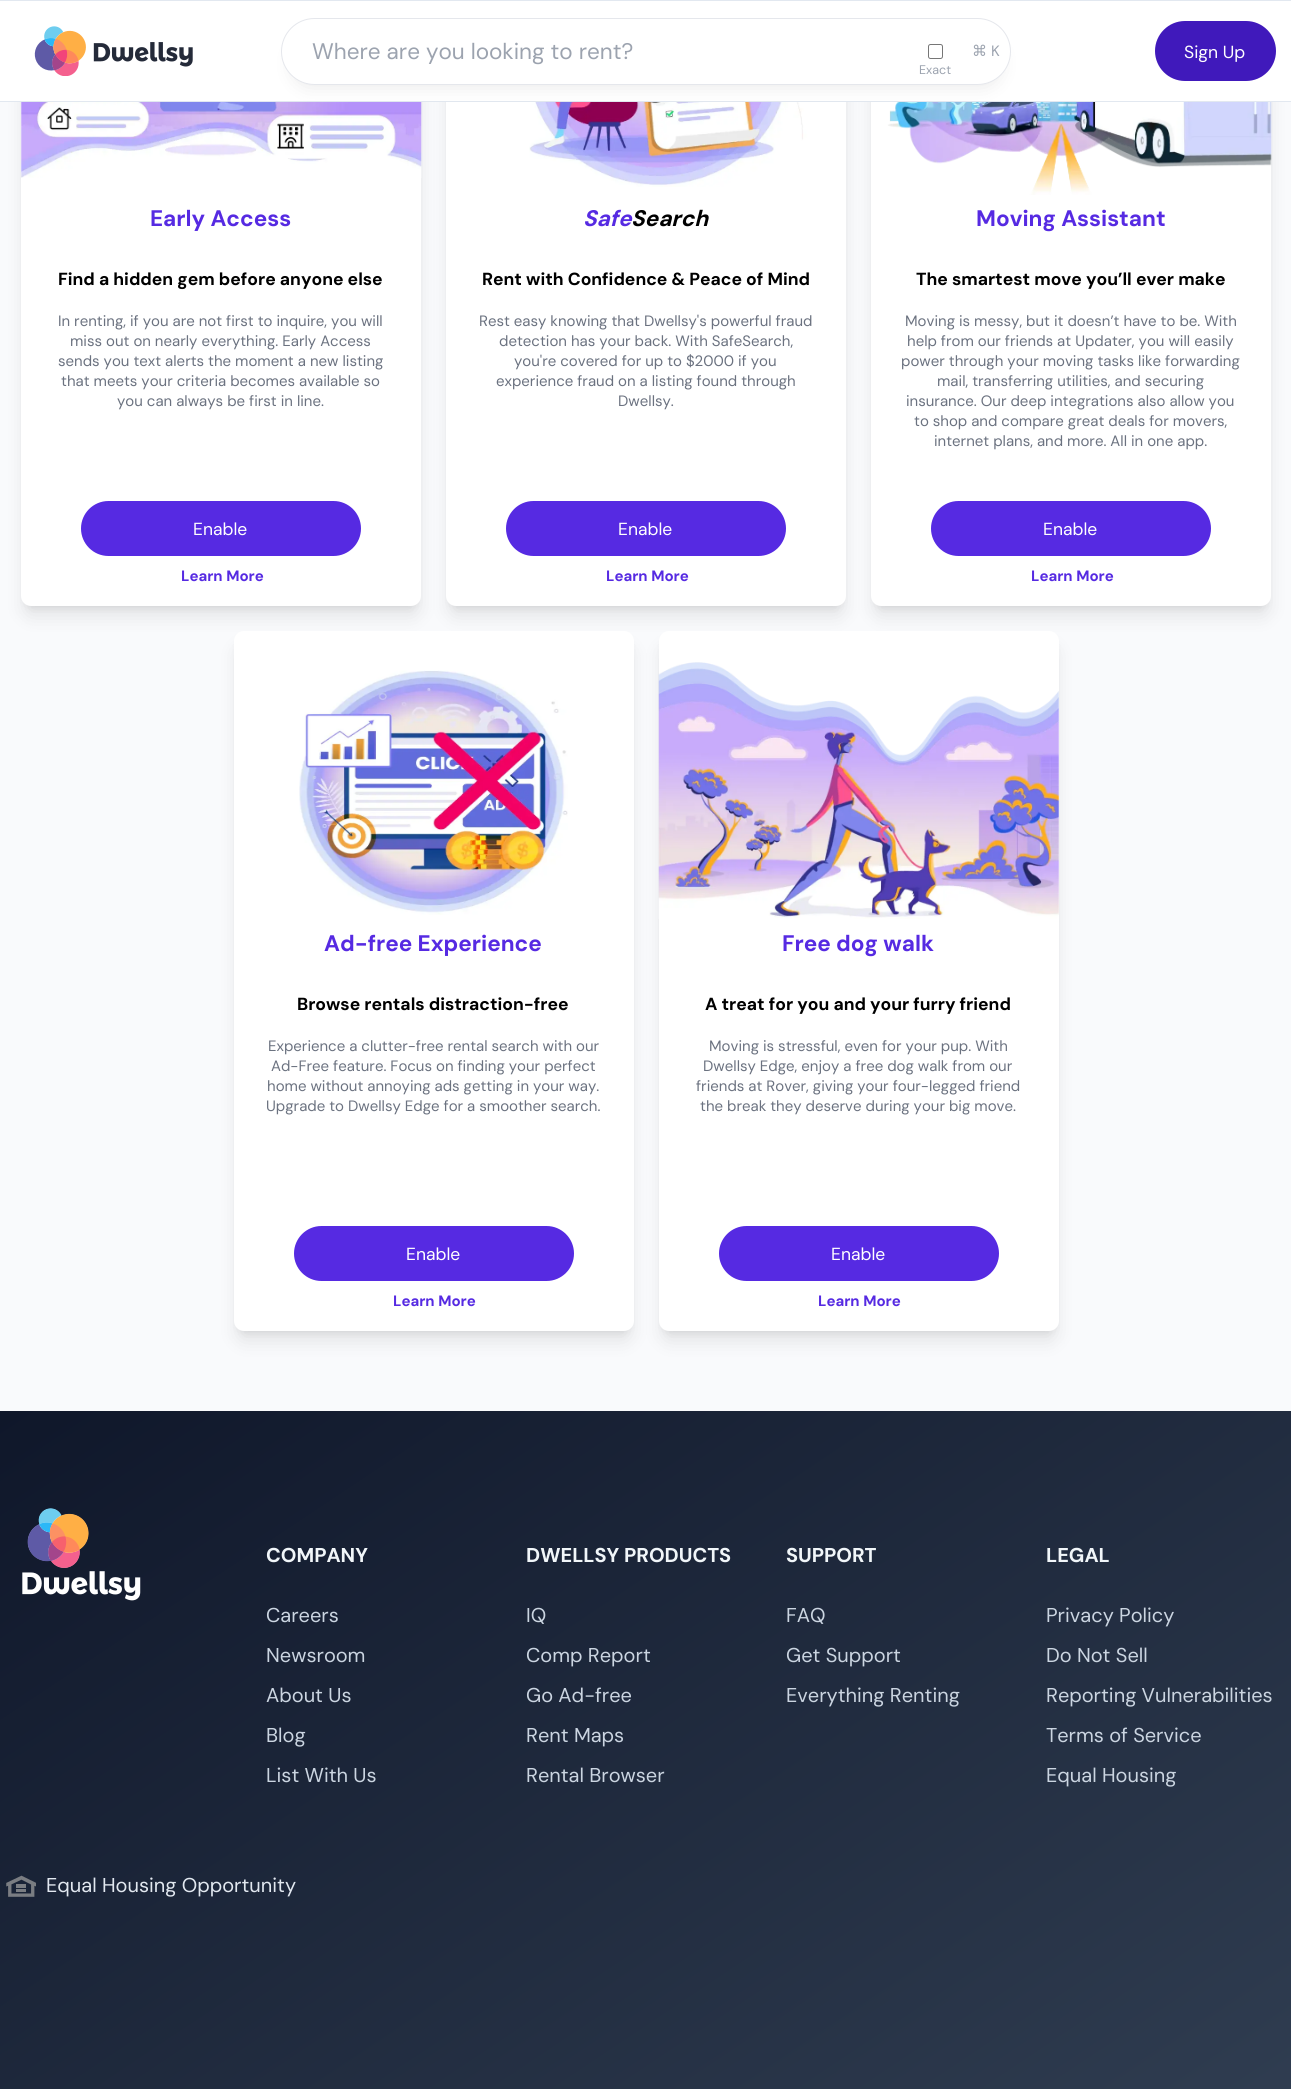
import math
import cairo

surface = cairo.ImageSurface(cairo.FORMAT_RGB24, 1291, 2089)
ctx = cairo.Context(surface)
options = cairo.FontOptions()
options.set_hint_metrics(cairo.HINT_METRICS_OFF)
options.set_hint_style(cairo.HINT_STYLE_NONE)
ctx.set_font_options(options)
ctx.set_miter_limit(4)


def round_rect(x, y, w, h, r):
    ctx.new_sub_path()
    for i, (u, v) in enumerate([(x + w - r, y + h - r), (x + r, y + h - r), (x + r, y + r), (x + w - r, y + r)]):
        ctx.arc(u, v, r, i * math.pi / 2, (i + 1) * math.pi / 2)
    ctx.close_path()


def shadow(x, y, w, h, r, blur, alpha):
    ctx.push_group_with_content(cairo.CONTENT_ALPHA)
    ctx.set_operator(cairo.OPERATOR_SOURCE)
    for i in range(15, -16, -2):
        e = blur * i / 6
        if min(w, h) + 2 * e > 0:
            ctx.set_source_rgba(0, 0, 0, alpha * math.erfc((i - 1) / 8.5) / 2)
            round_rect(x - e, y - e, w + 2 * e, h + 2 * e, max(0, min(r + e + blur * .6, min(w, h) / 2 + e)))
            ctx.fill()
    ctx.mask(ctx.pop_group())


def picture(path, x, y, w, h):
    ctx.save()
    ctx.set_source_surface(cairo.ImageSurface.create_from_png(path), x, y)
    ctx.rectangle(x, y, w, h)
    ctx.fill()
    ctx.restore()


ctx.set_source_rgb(0.973, 0.98, 0.988)
ctx.paint()
ctx.set_source_rgb(0, 0, 0)
shadow(26, -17, 390, 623, 5, 4, 0.1)
shadow(25, -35, 393, 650, 6, 9.5, 0.1)
ctx.set_source_rgb(1, 1, 1)
round_rect(21, -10, 400, 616, 10)
ctx.fill()
ctx.set_source_rgb(0, 0, 0)
shadow(451, -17, 390, 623, 5, 4, 0.1)
picture("img2.png", 21, 102, 401, 76)
shadow(450, -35, 393, 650, 6, 9.5, 0.1)
ctx.set_source_rgb(1, 1, 1)
round_rect(446, -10, 400, 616, 10)
ctx.fill()
ctx.set_source_rgb(0, 0, 0)
shadow(876, -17, 390, 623, 5, 4, 0.1)
shadow(875, -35, 393, 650, 6, 9.5, 0.1)
ctx.set_source_rgb(1, 1, 1)
round_rect(871, -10, 400, 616, 10)
ctx.fill()
ctx.rectangle(0, 1, 1291, 100)
ctx.fill()
ctx.set_source_rgb(0.886, 0.91, 0.941)
ctx.rectangle(0, 0, 1291, 1)
ctx.fill()
ctx.rectangle(0, 101, 1291, 1)
ctx.fill()
picture("img1.png", 34, 26, 159, 50)
picture("img3.png", 529, 102, 302, 85)
picture("img4.png", 887, 102, 385, 93)
ctx.set_source_rgb(0, 0, 0)
shadow(294, 43, 705, 42, 21, 9.5, 0.1)
ctx.set_source_rgb(1, 1, 1)
round_rect(281.5, 18.5, 729, 66, 33)
ctx.fill_preserve()
ctx.set_source_rgb(0.898, 0.906, 0.922)
ctx.set_line_width(1)
ctx.stroke()
ctx.select_font_face("DM Sans")
ctx.set_font_size(22.5)
ctx.set_source_rgb(0.612, 0.639, 0.686)
ctx.move_to(312, 59)
ctx.show_text("Where are you looking to rent?")
ctx.select_font_face("DejaVu Sans")
ctx.set_font_size(15)
ctx.move_to(972, 56)
ctx.show_text("⌘")
ctx.select_font_face("DM Sans")
ctx.move_to(991, 56)
ctx.show_text("K")
round_rect(928.5, 44.5, 14, 14, 2)
ctx.set_source_rgb(0.463, 0.463, 0.463)
ctx.stroke()
ctx.set_font_size(12.5)
ctx.set_source_rgb(0.612, 0.639, 0.686)
ctx.move_to(919, 74)
ctx.show_text("Exact")
ctx.set_source_rgb(0.251, 0.098, 0.733)
round_rect(1155, 21, 121, 60, 30)
ctx.fill()
ctx.set_font_size(17.5)
ctx.set_source_rgb(1, 1, 1)
ctx.move_to(1184, 58)
ctx.show_text("Sign Up")
ctx.select_font_face("DM Sans", cairo.FONT_SLANT_NORMAL, cairo.FONT_WEIGHT_BOLD)
ctx.set_font_size(22.5)
ctx.set_source_rgb(0.337, 0.165, 0.886)
ctx.move_to(150, 226)
ctx.show_text("Early Access")
ctx.set_font_size(17.5)
ctx.set_source_rgb(0, 0, 0)
ctx.move_to(58, 285)
ctx.show_text("Find a hidden gem before anyone else")
ctx.select_font_face("DM Sans")
ctx.set_font_size(15)
ctx.set_source_rgb(0.42, 0.447, 0.502)
ctx.move_to(58, 326)
ctx.show_text("In renting, if you are not first to inquire, you will")
ctx.move_to(70, 346)
ctx.show_text("miss out on nearly everything. Early Access")
ctx.move_to(58, 366)
ctx.show_text("sends you text alerts the moment a new listing")
ctx.move_to(61, 386)
ctx.show_text("that meets your criteria becomes available so")
ctx.move_to(117, 406)
ctx.show_text("you can always be first in line.")
ctx.set_source_rgb(0.337, 0.165, 0.886)
round_rect(81, 501, 280, 55, 27.5)
ctx.fill()
ctx.set_font_size(17.5)
ctx.set_source_rgb(1, 1, 1)
ctx.move_to(193, 535)
ctx.show_text("Enable")
ctx.select_font_face("DM Sans", cairo.FONT_SLANT_NORMAL, cairo.FONT_WEIGHT_BOLD)
ctx.set_font_size(15)
ctx.set_source_rgb(0.337, 0.165, 0.886)
ctx.move_to(181, 581)
ctx.show_text("Learn More")
ctx.select_font_face("DM Sans", cairo.FONT_SLANT_ITALIC, cairo.FONT_WEIGHT_BOLD)
ctx.set_font_size(22.5)
ctx.move_to(583, 226)
ctx.show_text("Safe")
ctx.set_source_rgb(0, 0, 0)
ctx.move_to(631, 226)
ctx.show_text("Search")
ctx.select_font_face("DM Sans", cairo.FONT_SLANT_NORMAL, cairo.FONT_WEIGHT_BOLD)
ctx.set_font_size(17.5)
ctx.move_to(482, 285)
ctx.show_text("Rent with Confidence & Peace of Mind")
ctx.select_font_face("DM Sans")
ctx.set_font_size(15)
ctx.set_source_rgb(0.42, 0.447, 0.502)
ctx.move_to(479, 326)
ctx.show_text("Rest easy knowing that Dwellsy's powerful fraud")
ctx.move_to(499, 346)
ctx.show_text("detection has your back. With SafeSearch,")
ctx.move_to(514, 366)
ctx.show_text("you're covered for up to $2000 if you")
ctx.move_to(496, 386)
ctx.show_text("experience fraud on a listing found through")
ctx.move_to(618, 406)
ctx.show_text("Dwellsy.")
ctx.set_source_rgb(0.337, 0.165, 0.886)
round_rect(506, 501, 280, 55, 27.5)
ctx.fill()
ctx.set_font_size(17.5)
ctx.set_source_rgb(1, 1, 1)
ctx.move_to(618, 535)
ctx.show_text("Enable")
ctx.select_font_face("DM Sans", cairo.FONT_SLANT_NORMAL, cairo.FONT_WEIGHT_BOLD)
ctx.set_font_size(15)
ctx.set_source_rgb(0.337, 0.165, 0.886)
ctx.move_to(606, 581)
ctx.show_text("Learn More")
ctx.set_font_size(22.5)
ctx.move_to(976, 226)
ctx.show_text("Moving Assistant")
ctx.set_font_size(17.5)
ctx.set_source_rgb(0, 0, 0)
ctx.move_to(916, 285)
ctx.show_text("The smartest move you’ll ever make")
ctx.select_font_face("DM Sans")
ctx.set_font_size(15)
ctx.set_source_rgb(0.42, 0.447, 0.502)
ctx.move_to(905, 326)
ctx.show_text("Moving is messy, but it doesn’t have to be. With")
ctx.move_to(907, 346)
ctx.show_text("help from our friends at Updater, you will easily")
ctx.move_to(901, 366)
ctx.show_text("power through your moving tasks like forwarding")
ctx.move_to(937, 386)
ctx.show_text("mail, transferring utilities, and securing")
ctx.move_to(906, 406)
ctx.show_text("insurance. Our deep integrations also allow you")
ctx.move_to(914, 426)
ctx.show_text("to shop and compare great deals for movers,")
ctx.move_to(934, 446)
ctx.show_text("internet plans, and more. All in one app.")
ctx.set_source_rgb(0.337, 0.165, 0.886)
round_rect(931, 501, 280, 55, 27.5)
ctx.fill()
ctx.set_font_size(17.5)
ctx.set_source_rgb(1, 1, 1)
ctx.move_to(1043, 535)
ctx.show_text("Enable")
ctx.select_font_face("DM Sans", cairo.FONT_SLANT_NORMAL, cairo.FONT_WEIGHT_BOLD)
ctx.set_font_size(15)
ctx.set_source_rgb(0.337, 0.165, 0.886)
ctx.move_to(1031, 581)
ctx.show_text("Learn More")
ctx.set_source_rgb(0, 0, 0)
shadow(239, 641, 390, 690, 5, 4, 0.1)
shadow(238, 648, 392, 692, 6, 9.5, 0.1)
ctx.set_source_rgb(1, 1, 1)
round_rect(234, 631, 400, 700, 10)
ctx.fill()
picture("img5.png", 299, 670, 269, 245)
ctx.set_font_size(22.5)
ctx.set_source_rgb(0.337, 0.165, 0.886)
ctx.move_to(324, 951)
ctx.show_text("Ad-free Experience")
ctx.set_font_size(17.5)
ctx.set_source_rgb(0, 0, 0)
ctx.move_to(297, 1010)
ctx.show_text("Browse rentals distraction-free")
ctx.select_font_face("DM Sans")
ctx.set_font_size(15)
ctx.set_source_rgb(0.42, 0.447, 0.502)
ctx.move_to(268, 1051)
ctx.show_text("Experience a clutter-free rental search with our")
ctx.move_to(271, 1071)
ctx.show_text("Ad-Free feature. Focus on finding your perfect")
ctx.move_to(267, 1091)
ctx.show_text("home without annoying ads getting in your way.")
ctx.move_to(266, 1111)
ctx.show_text("Upgrade to Dwellsy Edge for a smoother search.")
ctx.set_source_rgb(0.337, 0.165, 0.886)
round_rect(294, 1226, 280, 55, 27.5)
ctx.fill()
ctx.set_font_size(17.5)
ctx.set_source_rgb(1, 1, 1)
ctx.move_to(406, 1260)
ctx.show_text("Enable")
ctx.select_font_face("DM Sans", cairo.FONT_SLANT_NORMAL, cairo.FONT_WEIGHT_BOLD)
ctx.set_font_size(15)
ctx.set_source_rgb(0.337, 0.165, 0.886)
ctx.move_to(393, 1306)
ctx.show_text("Learn More")
ctx.set_source_rgb(0, 0, 0)
shadow(664, 641, 390, 690, 5, 4, 0.1)
shadow(663, 648, 392, 692, 6, 9.5, 0.1)
ctx.set_source_rgb(1, 1, 1)
round_rect(659, 631, 400, 700, 10)
ctx.fill()
picture("img6.png", 658, 662, 401, 257)
ctx.set_font_size(22.5)
ctx.set_source_rgb(0.337, 0.165, 0.886)
ctx.move_to(782, 951)
ctx.show_text("Free dog walk")
ctx.set_font_size(17.5)
ctx.set_source_rgb(0, 0, 0)
ctx.move_to(705, 1010)
ctx.show_text("A treat for you and your furry friend")
ctx.select_font_face("DM Sans")
ctx.set_font_size(15)
ctx.set_source_rgb(0.42, 0.447, 0.502)
ctx.move_to(709, 1051)
ctx.show_text("Moving is stressful, even for your pup. With")
ctx.move_to(703, 1071)
ctx.show_text("Dwellsy Edge, enjoy a free dog walk from our")
ctx.move_to(696, 1091)
ctx.show_text("friends at Rover, giving your four-legged friend")
ctx.move_to(700, 1111)
ctx.show_text("the break they deserve during your big move.")
ctx.set_source_rgb(0.337, 0.165, 0.886)
round_rect(719, 1226, 280, 55, 27.5)
ctx.fill()
ctx.set_font_size(17.5)
ctx.set_source_rgb(1, 1, 1)
ctx.move_to(831, 1260)
ctx.show_text("Enable")
ctx.select_font_face("DM Sans", cairo.FONT_SLANT_NORMAL, cairo.FONT_WEIGHT_BOLD)
ctx.set_font_size(15)
ctx.set_source_rgb(0.337, 0.165, 0.886)
ctx.move_to(818, 1306)
ctx.show_text("Learn More")
gradient = cairo.LinearGradient(249, 1246, 1042, 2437)
gradient.add_color_stop_rgba(0, 0.059, 0.09, 0.165, 1)
gradient.add_color_stop_rgba(1, 0.2, 0.255, 0.333, 1)
ctx.set_source(gradient)
ctx.rectangle(0, 1411, 1291, 678)
ctx.fill()
picture("img7.png", 22, 1508, 119, 93)
ctx.set_font_size(20)
ctx.set_source_rgb(0.945, 0.961, 0.976)
ctx.move_to(266, 1562)
ctx.show_text("COMPANY")
ctx.select_font_face("DM Sans")
ctx.set_source_rgb(0.796, 0.835, 0.882)
ctx.move_to(266, 1622)
ctx.show_text("Careers")
ctx.move_to(266, 1662)
ctx.show_text("Newsroom")
ctx.move_to(266, 1702)
ctx.show_text("About Us")
ctx.move_to(266, 1742)
ctx.show_text("Blog")
ctx.move_to(266, 1782)
ctx.show_text("List With Us")
ctx.select_font_face("DM Sans", cairo.FONT_SLANT_NORMAL, cairo.FONT_WEIGHT_BOLD)
ctx.set_source_rgb(0.945, 0.961, 0.976)
ctx.move_to(526, 1562)
ctx.show_text("DWELLSY PRODUCTS")
ctx.select_font_face("DM Sans")
ctx.set_source_rgb(0.796, 0.835, 0.882)
ctx.move_to(526, 1622)
ctx.show_text("IQ")
ctx.move_to(526, 1662)
ctx.show_text("Comp Report")
ctx.move_to(526, 1702)
ctx.show_text("Go Ad-free")
ctx.move_to(526, 1742)
ctx.show_text("Rent Maps")
ctx.move_to(526, 1782)
ctx.show_text("Rental Browser")
ctx.select_font_face("DM Sans", cairo.FONT_SLANT_NORMAL, cairo.FONT_WEIGHT_BOLD)
ctx.set_source_rgb(0.945, 0.961, 0.976)
ctx.move_to(786, 1562)
ctx.show_text("SUPPORT")
ctx.select_font_face("DM Sans")
ctx.set_source_rgb(0.796, 0.835, 0.882)
ctx.move_to(786, 1622)
ctx.show_text("FAQ")
ctx.move_to(786, 1662)
ctx.show_text("Get Support")
ctx.move_to(786, 1702)
ctx.show_text("Everything Renting")
ctx.select_font_face("DM Sans", cairo.FONT_SLANT_NORMAL, cairo.FONT_WEIGHT_BOLD)
ctx.set_source_rgb(0.945, 0.961, 0.976)
ctx.move_to(1046, 1562)
ctx.show_text("LEGAL")
ctx.select_font_face("DM Sans")
ctx.set_source_rgb(0.796, 0.835, 0.882)
ctx.move_to(1046, 1622)
ctx.show_text("Privacy Policy")
ctx.move_to(1046, 1662)
ctx.show_text("Do Not Sell")
ctx.move_to(1046, 1702)
ctx.show_text("Reporting Vulnerabilities")
ctx.move_to(1046, 1742)
ctx.show_text("Terms of Service")
ctx.move_to(1046, 1782)
ctx.show_text("Equal Housing")
picture("img8.png", 6, 1875, 30, 22)
ctx.set_source_rgb(0.886, 0.91, 0.941)
ctx.move_to(46, 1892)
ctx.show_text("Equal Housing Opportunity")
surface.write_to_png("page.png")
